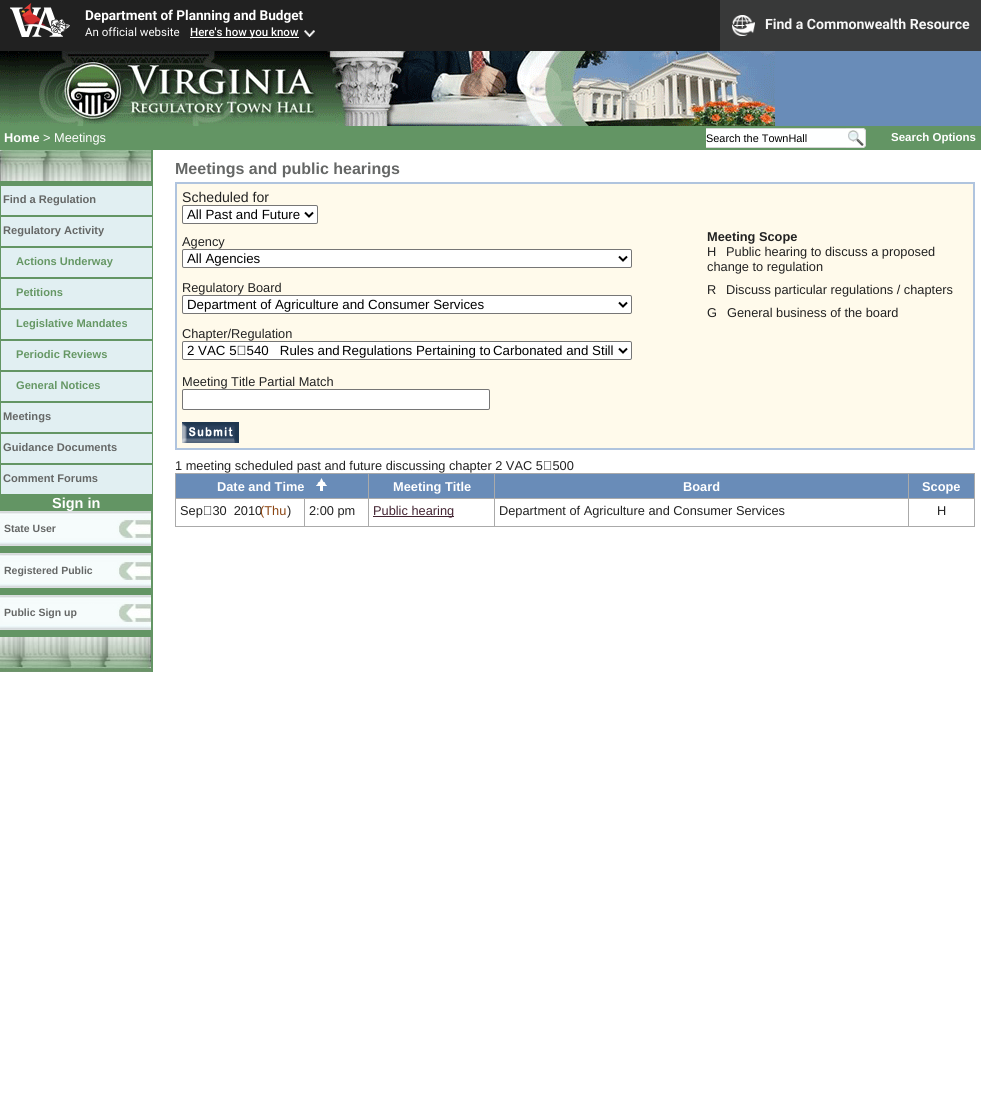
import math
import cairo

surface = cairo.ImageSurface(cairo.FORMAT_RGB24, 981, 1094)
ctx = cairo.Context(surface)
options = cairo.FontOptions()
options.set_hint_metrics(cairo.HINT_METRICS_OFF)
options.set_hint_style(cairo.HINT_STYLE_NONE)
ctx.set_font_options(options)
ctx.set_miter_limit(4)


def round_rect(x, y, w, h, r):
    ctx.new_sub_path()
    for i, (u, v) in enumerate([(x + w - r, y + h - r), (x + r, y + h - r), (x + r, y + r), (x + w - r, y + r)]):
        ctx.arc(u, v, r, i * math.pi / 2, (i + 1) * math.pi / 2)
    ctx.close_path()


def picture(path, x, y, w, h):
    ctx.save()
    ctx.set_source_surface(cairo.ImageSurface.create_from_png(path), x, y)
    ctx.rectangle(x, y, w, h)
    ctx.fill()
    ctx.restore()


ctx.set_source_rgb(1, 1, 1)
ctx.paint()
ctx.set_source_rgb(0.129, 0.129, 0.129)
ctx.rectangle(0, 0, 720, 51)
ctx.fill()
picture("img1.png", 10, 3, 60, 34)
ctx.select_font_face("Roboto", cairo.FONT_SLANT_NORMAL, cairo.FONT_WEIGHT_BOLD)
ctx.set_font_size(13.6)
ctx.set_source_rgb(1, 1, 1)
ctx.move_to(85, 20)
ctx.show_text("Department of Planning and Budget")
ctx.select_font_face("Roboto")
ctx.set_font_size(11.5)
ctx.move_to(85, 36)
ctx.show_text("An official website")
ctx.rectangle(190, 37, 109, 1)
ctx.fill()
ctx.select_font_face("Roboto Medium")
ctx.move_to(190, 36)
ctx.show_text("Here's how you know")
picture("img2.png", 304, 30, 11, 7)
ctx.set_source_rgb(0.22, 0.224, 0.224)
ctx.rectangle(720, 0, 261, 51)
ctx.fill()
picture("img3.png", 732, 15, 23, 21)
ctx.select_font_face("Roboto", cairo.FONT_SLANT_NORMAL, cairo.FONT_WEIGHT_BOLD)
ctx.set_font_size(14.1)
ctx.set_source_rgb(0.965, 0.965, 0.965)
ctx.move_to(765, 29)
ctx.show_text("Find a Commonwealth Resource")
ctx.set_source_rgb(0.412, 0.549, 0.722)
ctx.rectangle(775, 51, 206, 75)
ctx.fill()
picture("img4.png", 0, 51, 775, 75)
ctx.set_source_rgb(0.388, 0.584, 0.392)
ctx.rectangle(0, 126, 981, 24)
ctx.fill()
ctx.select_font_face("Liberation Sans", cairo.FONT_SLANT_NORMAL, cairo.FONT_WEIGHT_BOLD)
ctx.set_font_size(12.8)
ctx.set_source_rgb(1, 1, 1)
ctx.move_to(4, 142)
ctx.show_text("Home")
ctx.select_font_face("Liberation Sans")
ctx.move_to(43, 142)
ctx.show_text("> Meetings")
ctx.set_source_rgb(0.996, 1, 1)
ctx.rectangle(706, 129, 140, 18)
ctx.fill()
ctx.set_source_rgb(0.835, 0.835, 0.835)
ctx.rectangle(706, 128, 140, 1)
ctx.fill()
ctx.rectangle(706, 147, 140, 1)
ctx.fill()
ctx.set_font_size(10.9)
ctx.set_source_rgb(0, 0, 0)
ctx.move_to(706, 142)
ctx.show_text("Search the TownHall")
picture("img5.png", 846, 128, 20, 20)
ctx.select_font_face("Liberation Sans", cairo.FONT_SLANT_NORMAL, cairo.FONT_WEIGHT_BOLD)
ctx.set_font_size(11.5)
ctx.set_source_rgb(1, 1, 1)
ctx.move_to(891, 141)
ctx.show_text("Search Options")
ctx.set_source_rgb(0.388, 0.584, 0.392)
ctx.rectangle(0, 150, 153, 522)
ctx.fill()
picture("img6.png", 0, 150, 151, 31)
ctx.set_source_rgb(0.882, 0.937, 0.949)
ctx.rectangle(1, 186, 151, 29)
ctx.fill()
ctx.set_font_size(11.1)
ctx.set_source_rgb(0.396, 0.404, 0.4)
ctx.move_to(3, 203)
ctx.show_text("Find a Regulation")
ctx.set_source_rgb(0.882, 0.937, 0.949)
ctx.rectangle(1, 217, 151, 29)
ctx.fill()
ctx.set_source_rgb(0.396, 0.404, 0.4)
ctx.move_to(3, 234)
ctx.show_text("Regulatory Activity")
ctx.set_source_rgb(0.882, 0.937, 0.949)
ctx.rectangle(1, 248, 151, 29)
ctx.fill()
ctx.set_source_rgb(0.396, 0.592, 0.392)
ctx.move_to(16, 265)
ctx.show_text("Actions Underway")
ctx.set_source_rgb(0.882, 0.937, 0.949)
ctx.rectangle(1, 279, 151, 29)
ctx.fill()
ctx.set_source_rgb(0.396, 0.592, 0.392)
ctx.move_to(16, 296)
ctx.show_text("Petitions")
ctx.set_source_rgb(0.882, 0.937, 0.949)
ctx.rectangle(1, 310, 151, 29)
ctx.fill()
ctx.set_source_rgb(0.396, 0.592, 0.392)
ctx.move_to(16, 327)
ctx.show_text("Legislative Mandates")
ctx.set_source_rgb(0.882, 0.937, 0.949)
ctx.rectangle(1, 341, 151, 29)
ctx.fill()
ctx.set_source_rgb(0.396, 0.592, 0.392)
ctx.move_to(16, 358)
ctx.show_text("Periodic Reviews")
ctx.set_source_rgb(0.882, 0.937, 0.949)
ctx.rectangle(1, 372, 151, 29)
ctx.fill()
ctx.set_source_rgb(0.396, 0.592, 0.392)
ctx.move_to(16, 389)
ctx.show_text("General Notices")
ctx.set_source_rgb(0.882, 0.937, 0.949)
ctx.rectangle(1, 403, 151, 29)
ctx.fill()
ctx.set_source_rgb(0.396, 0.404, 0.4)
ctx.move_to(3, 420)
ctx.show_text("Meetings")
ctx.set_source_rgb(0.882, 0.937, 0.949)
ctx.rectangle(1, 434, 151, 29)
ctx.fill()
ctx.set_source_rgb(0.396, 0.404, 0.4)
ctx.move_to(3, 451)
ctx.show_text("Guidance Documents")
ctx.set_source_rgb(0.882, 0.937, 0.949)
ctx.rectangle(1, 465, 151, 29)
ctx.fill()
ctx.set_source_rgb(0.396, 0.404, 0.4)
ctx.move_to(3, 482)
ctx.show_text("Comment Forums")
picture("img7.png", 0, 511, 151, 35)
ctx.set_font_size(14.5)
ctx.set_source_rgb(1, 1, 1)
ctx.move_to(52, 508)
ctx.show_text("Sign in")
ctx.set_font_size(10.5)
ctx.set_source_rgb(0.396, 0.404, 0.4)
ctx.move_to(4, 532)
ctx.show_text("State User")
picture("img7.png", 0, 553, 151, 35)
ctx.move_to(4, 574)
ctx.show_text("Registered Public")
picture("img7.png", 0, 595, 151, 35)
ctx.move_to(4, 616)
ctx.show_text("Public Sign up")
picture("img8.png", 0, 637, 151, 35)
ctx.set_font_size(16)
ctx.move_to(175, 174)
ctx.show_text("Meetings and public hearings")
ctx.set_source_rgb(1, 0.98, 0.918)
ctx.rectangle(176, 183, 798, 266)
ctx.fill_preserve()
ctx.set_source_rgb(0.69, 0.769, 0.871)
ctx.stroke()
ctx.select_font_face("Liberation Sans")
ctx.set_font_size(14.1)
ctx.set_source_rgb(0.133, 0.133, 0.133)
ctx.move_to(182, 202)
ctx.show_text("Scheduled for")
ctx.set_source_rgb(1, 1, 1)
round_rect(182.5, 205.5, 135, 18, 1.5)
ctx.fill_preserve()
ctx.set_source_rgb(0.463, 0.463, 0.463)
ctx.set_line_width(1)
ctx.stroke()
ctx.new_path()
ctx.move_to(305, 212.5)
ctx.line_to(309, 216.5)
ctx.line_to(313, 212.5)
ctx.set_source_rgb(0, 0, 0)
ctx.set_line_width(2)
ctx.stroke()
ctx.set_font_size(13.3)
ctx.move_to(187, 219)
ctx.show_text("All Past and Future")
ctx.set_font_size(12.8)
ctx.set_source_rgb(0.133, 0.133, 0.133)
ctx.move_to(182, 246)
ctx.show_text("Agency")
ctx.set_source_rgb(1, 1, 1)
round_rect(182.5, 249.5, 449, 18, 1.5)
ctx.fill_preserve()
ctx.set_source_rgb(0.463, 0.463, 0.463)
ctx.set_line_width(1)
ctx.stroke()
ctx.new_path()
ctx.move_to(619, 256.5)
ctx.line_to(623, 260.5)
ctx.line_to(627, 256.5)
ctx.set_source_rgb(0, 0, 0)
ctx.set_line_width(2)
ctx.stroke()
ctx.set_font_size(13.3)
ctx.move_to(187, 263)
ctx.show_text("All Agencies")
ctx.set_font_size(12.8)
ctx.set_source_rgb(0.133, 0.133, 0.133)
ctx.move_to(182, 292)
ctx.show_text("Regulatory Board")
ctx.set_source_rgb(1, 1, 1)
round_rect(182.5, 295.5, 449, 18, 1.5)
ctx.fill_preserve()
ctx.set_source_rgb(0.463, 0.463, 0.463)
ctx.set_line_width(1)
ctx.stroke()
ctx.new_path()
ctx.move_to(619, 302.5)
ctx.line_to(623, 306.5)
ctx.line_to(627, 302.5)
ctx.set_source_rgb(0, 0, 0)
ctx.set_line_width(2)
ctx.stroke()
ctx.set_font_size(13.3)
ctx.move_to(187, 309)
ctx.show_text("Department of Agriculture and Consumer Services")
ctx.set_font_size(12.8)
ctx.set_source_rgb(0.133, 0.133, 0.133)
ctx.move_to(182, 338)
ctx.show_text("Chapter/Regulation")
ctx.set_source_rgb(1, 1, 1)
round_rect(182.5, 341.5, 449, 18, 1.5)
ctx.fill_preserve()
ctx.set_source_rgb(0.463, 0.463, 0.463)
ctx.set_line_width(1)
ctx.stroke()
ctx.new_path()
ctx.move_to(619, 348.5)
ctx.line_to(623, 352.5)
ctx.line_to(627, 348.5)
ctx.set_source_rgb(0, 0, 0)
ctx.set_line_width(2)
ctx.stroke()
ctx.set_font_size(13.3)
ctx.move_to(187, 355)
ctx.show_text("2 VAC 5‑540   Rules and")
ctx.move_to(342, 355)
ctx.show_text("Regulations Pertaining to")
ctx.move_to(493, 355)
ctx.show_text("Carbonated and Still")
ctx.set_font_size(12.8)
ctx.set_source_rgb(0.133, 0.133, 0.133)
ctx.move_to(182, 386)
ctx.show_text("Meeting Title Partial Match")
ctx.set_source_rgb(1, 1, 1)
round_rect(182.5, 389.5, 307, 20, 1.5)
ctx.fill_preserve()
ctx.set_source_rgb(0.463, 0.463, 0.463)
ctx.set_line_width(1)
ctx.stroke()
picture("img9.png", 182, 422, 57, 21)
ctx.select_font_face("Liberation Sans", cairo.FONT_SLANT_NORMAL, cairo.FONT_WEIGHT_BOLD)
ctx.set_source_rgb(0.133, 0.133, 0.133)
ctx.move_to(707, 241)
ctx.show_text("Meeting Scope")
ctx.select_font_face("Liberation Sans")
ctx.move_to(707, 256)
ctx.show_text("H")
ctx.move_to(726, 256)
ctx.show_text("Public hearing to discuss a proposed")
ctx.move_to(707, 271)
ctx.show_text("change to regulation")
ctx.move_to(707, 294)
ctx.show_text("R")
ctx.move_to(726, 294)
ctx.show_text("Discuss particular regulations / chapters")
ctx.move_to(707, 317)
ctx.show_text("G")
ctx.move_to(727, 317)
ctx.show_text("General business of the board")
ctx.move_to(175, 470)
ctx.show_text("1 meeting scheduled past and future discussing chapter 2 VAC 5‑500")
ctx.set_source_rgb(0.412, 0.549, 0.722)
ctx.rectangle(176, 474, 192, 24)
ctx.fill()
ctx.set_source_rgb(0.667, 0.667, 0.667)
ctx.rectangle(908, 473, 67, 1)
ctx.fill()
ctx.rectangle(908, 498, 67, 1)
ctx.fill()
ctx.rectangle(974, 498, 1, 29)
ctx.fill()
ctx.rectangle(908, 526, 67, 1)
ctx.fill()
ctx.rectangle(908, 498, 1, 29)
ctx.fill()
ctx.rectangle(494, 498, 415, 1)
ctx.fill()
ctx.rectangle(908, 473, 1, 26)
ctx.fill()
ctx.rectangle(494, 473, 415, 1)
ctx.fill()
ctx.rectangle(494, 526, 415, 1)
ctx.fill()
ctx.rectangle(494, 498, 1, 29)
ctx.fill()
ctx.rectangle(368, 498, 127, 1)
ctx.fill()
ctx.rectangle(494, 473, 1, 26)
ctx.fill()
ctx.rectangle(368, 473, 127, 1)
ctx.fill()
ctx.rectangle(368, 526, 127, 1)
ctx.fill()
ctx.rectangle(368, 498, 1, 29)
ctx.fill()
ctx.rectangle(304, 498, 65, 1)
ctx.fill()
ctx.rectangle(368, 473, 1, 26)
ctx.fill()
ctx.rectangle(175, 473, 194, 1)
ctx.fill()
ctx.rectangle(304, 526, 65, 1)
ctx.fill()
ctx.rectangle(304, 498, 1, 29)
ctx.fill()
ctx.rectangle(175, 498, 130, 1)
ctx.fill()
ctx.rectangle(175, 526, 130, 1)
ctx.fill()
ctx.rectangle(175, 498, 1, 29)
ctx.fill()
ctx.rectangle(175, 473, 1, 26)
ctx.fill()
ctx.select_font_face("Liberation Sans", cairo.FONT_SLANT_NORMAL, cairo.FONT_WEIGHT_BOLD)
ctx.set_source_rgb(1, 1, 1)
ctx.move_to(217, 491)
ctx.show_text("Date and Time")
picture("img10.png", 316, 478, 11, 13)
ctx.set_source_rgb(0.412, 0.549, 0.722)
ctx.rectangle(369, 474, 125, 24)
ctx.fill()
ctx.set_source_rgb(1, 1, 1)
ctx.move_to(393, 491)
ctx.show_text("Meeting Title")
ctx.set_source_rgb(0.412, 0.549, 0.722)
ctx.rectangle(495, 474, 413, 24)
ctx.fill()
ctx.set_source_rgb(1, 1, 1)
ctx.move_to(683, 491)
ctx.show_text("Board")
ctx.set_source_rgb(0.412, 0.549, 0.722)
ctx.rectangle(909, 474, 65, 24)
ctx.fill()
ctx.set_source_rgb(0.667, 0.667, 0.667)
ctx.rectangle(974, 473, 1, 26)
ctx.fill()
ctx.set_source_rgb(1, 1, 1)
ctx.move_to(922, 491)
ctx.show_text("Scope")
ctx.select_font_face("Liberation Sans")
ctx.set_source_rgb(0.133, 0.133, 0.133)
ctx.move_to(180, 515)
ctx.show_text("Sep‑30  2010")
ctx.set_source_rgb(0.545, 0.271, 0.075)
ctx.move_to(260, 515)
ctx.show_text("(Thu")
ctx.set_source_rgb(0.133, 0.133, 0.133)
ctx.move_to(287, 515)
ctx.show_text(")")
ctx.move_to(309, 515)
ctx.show_text("2:00 pm")
ctx.set_source_rgb(0.263, 0.141, 0.196)
ctx.rectangle(373, 516, 81, 1)
ctx.fill()
ctx.move_to(373, 515)
ctx.show_text("Public hearing")
ctx.set_source_rgb(0.133, 0.133, 0.133)
ctx.move_to(499, 515)
ctx.show_text("Department of Agriculture and Consumer Services")
ctx.move_to(937, 515)
ctx.show_text("H")
surface.write_to_png("page.png")
